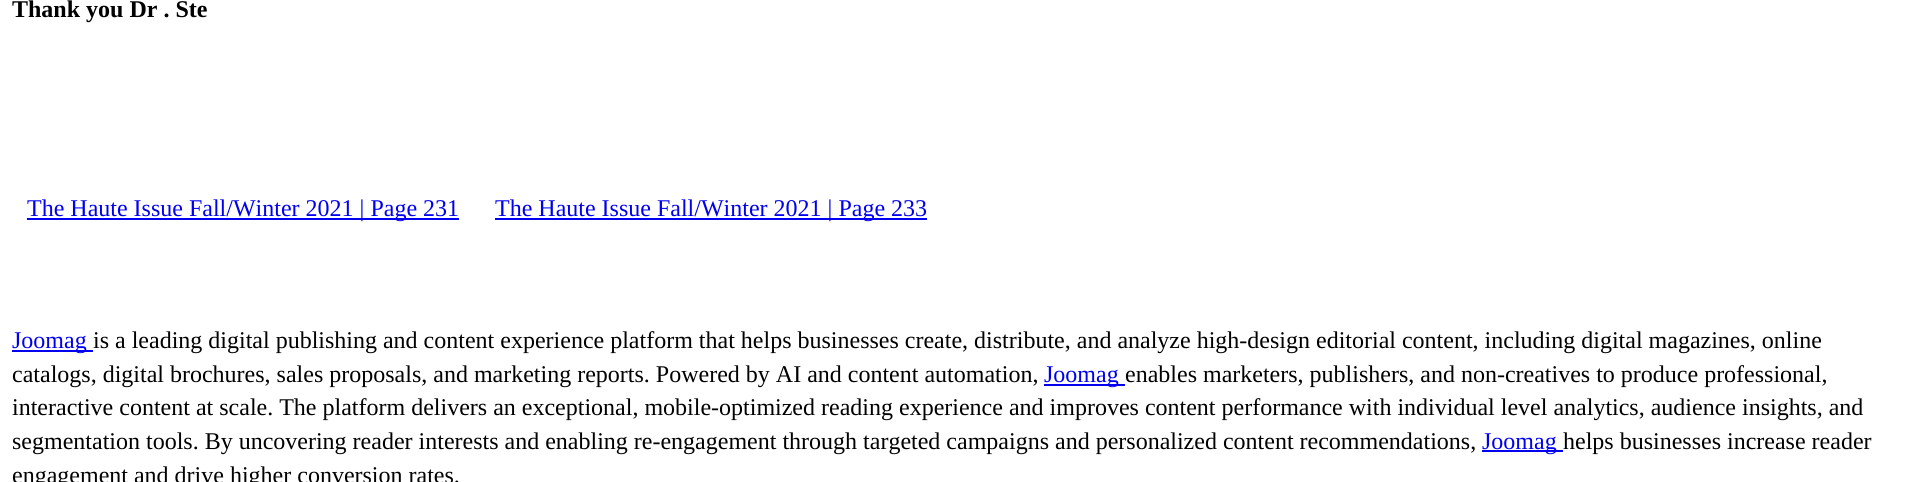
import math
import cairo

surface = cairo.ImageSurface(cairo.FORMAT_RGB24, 1908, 482)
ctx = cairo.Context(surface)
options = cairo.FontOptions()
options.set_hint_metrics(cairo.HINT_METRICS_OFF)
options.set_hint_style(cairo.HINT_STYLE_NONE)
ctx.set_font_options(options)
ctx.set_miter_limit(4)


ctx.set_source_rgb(1, 1, 1)
ctx.paint()
ctx.select_font_face("Liberation Serif", cairo.FONT_SLANT_NORMAL, cairo.FONT_WEIGHT_BOLD)
ctx.set_font_size(24)
ctx.set_source_rgb(0, 0, 0)
ctx.move_to(12, 17)
ctx.show_text("Thank you Dr . Ste")
ctx.set_source_rgb(0, 0, 0.933)
ctx.rectangle(27, 218, 432, 2)
ctx.fill()
ctx.select_font_face("Liberation Serif")
ctx.move_to(27, 216)
ctx.show_text("The Haute Issue Fall/Winter 2021 | Page 231")
ctx.rectangle(495, 218, 432, 2)
ctx.fill()
ctx.move_to(495, 216)
ctx.show_text("The Haute Issue Fall/Winter 2021 | Page 233")
ctx.rectangle(12, 350, 81, 2)
ctx.fill()
ctx.move_to(12, 348)
ctx.show_text("Joomag")
ctx.set_source_rgb(0, 0, 0)
ctx.move_to(93, 348)
ctx.show_text("is a leading digital publishing and content experience platform that helps businesses create, distribute, and analyze high-design editorial content, including digital magazines, online")
ctx.move_to(12, 382)
ctx.show_text("catalogs, digital brochures, sales proposals, and marketing reports. Powered by AI and content automation,")
ctx.set_source_rgb(0, 0, 0.933)
ctx.rectangle(1044, 384, 81, 2)
ctx.fill()
ctx.move_to(1044, 382)
ctx.show_text("Joomag")
ctx.set_source_rgb(0, 0, 0)
ctx.move_to(1125, 382)
ctx.show_text("enables marketers, publishers, and non-creatives to produce professional,")
ctx.move_to(12, 415)
ctx.show_text("interactive content at scale. The platform delivers an exceptional, mobile-optimized reading experience and improves content performance with individual level analytics, audience insights, and")
ctx.move_to(12, 449)
ctx.show_text("segmentation tools. By uncovering reader interests and enabling re-engagement through targeted campaigns and personalized content recommendations,")
ctx.set_source_rgb(0, 0, 0.933)
ctx.rectangle(1482, 450, 81, 2)
ctx.fill()
ctx.move_to(1482, 449)
ctx.show_text("Joomag")
ctx.set_source_rgb(0, 0, 0)
ctx.move_to(1563, 449)
ctx.show_text("helps businesses increase reader")
ctx.move_to(12, 483)
ctx.show_text("engagement and drive higher conversion rates.")
surface.write_to_png("page.png")
